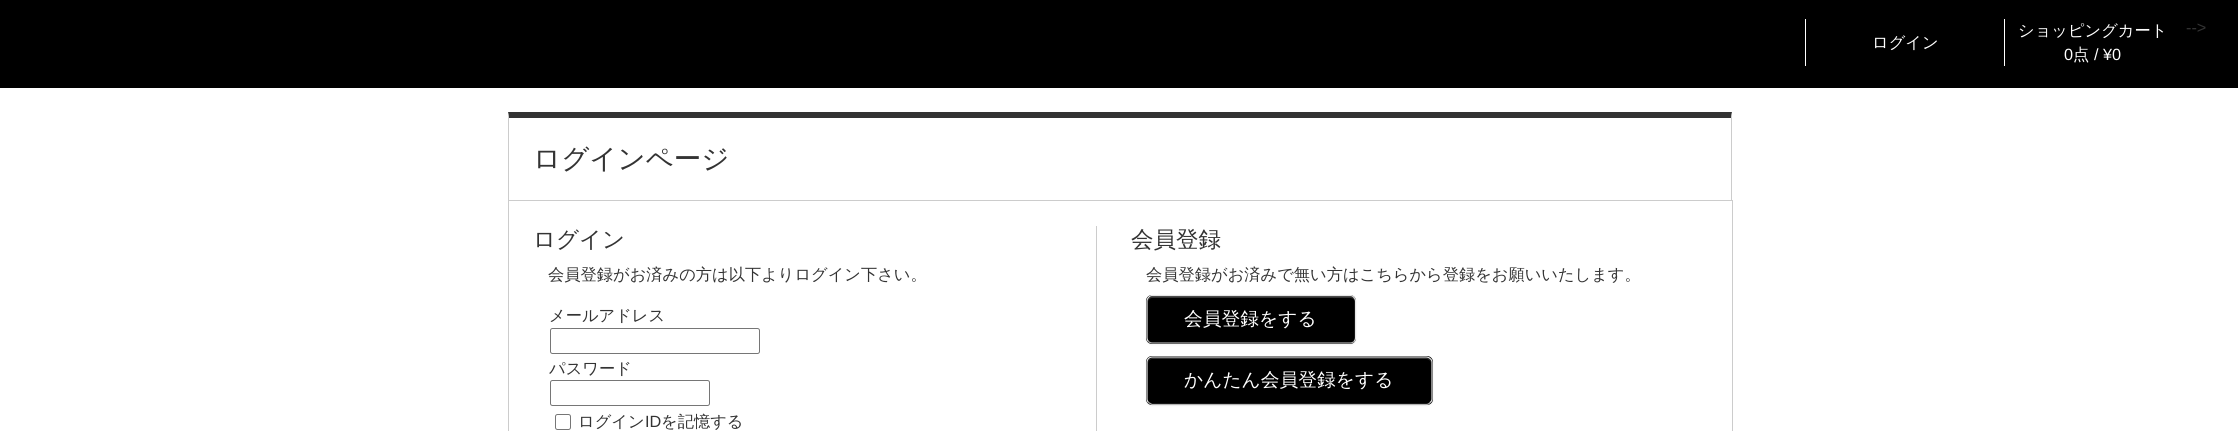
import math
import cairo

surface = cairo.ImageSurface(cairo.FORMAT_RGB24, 2238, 431)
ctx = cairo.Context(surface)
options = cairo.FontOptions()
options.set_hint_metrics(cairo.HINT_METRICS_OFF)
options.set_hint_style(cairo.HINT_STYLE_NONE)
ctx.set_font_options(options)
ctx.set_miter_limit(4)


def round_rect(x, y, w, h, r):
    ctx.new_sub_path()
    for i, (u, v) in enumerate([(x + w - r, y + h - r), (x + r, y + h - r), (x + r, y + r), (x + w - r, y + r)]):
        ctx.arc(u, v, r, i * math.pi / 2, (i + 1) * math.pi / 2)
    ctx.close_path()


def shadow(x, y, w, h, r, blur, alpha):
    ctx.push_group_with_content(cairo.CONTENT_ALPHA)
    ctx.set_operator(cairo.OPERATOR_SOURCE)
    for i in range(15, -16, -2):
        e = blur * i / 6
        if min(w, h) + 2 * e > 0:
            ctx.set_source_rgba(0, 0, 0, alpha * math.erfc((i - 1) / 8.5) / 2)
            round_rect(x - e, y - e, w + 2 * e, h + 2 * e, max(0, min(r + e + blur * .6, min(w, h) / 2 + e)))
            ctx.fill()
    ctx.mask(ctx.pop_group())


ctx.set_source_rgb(1, 1, 1)
ctx.paint()
ctx.set_source_rgb(0, 0, 0)
ctx.rectangle(0, 0, 2238, 88)
ctx.fill()
ctx.select_font_face("WenQuanYi Zen Hei Medium")
ctx.set_font_size(16.25)
ctx.set_source_rgb(1, 1, 1)
ctx.move_to(2018, 36)
ctx.show_text("ショッピングカート")
ctx.select_font_face("Liberation Sans")
ctx.move_to(2064, 60)
ctx.show_text("0")
ctx.select_font_face("WenQuanYi Zen Hei Medium")
ctx.move_to(2073, 60)
ctx.show_text("点")
ctx.select_font_face("Liberation Sans")
ctx.move_to(2094, 60)
ctx.show_text("/ ¥0")
ctx.set_source_rgb(0.2, 0.2, 0.2)
ctx.move_to(2186, 33)
ctx.show_text("-->")
ctx.set_source_rgb(1, 1, 1)
ctx.rectangle(2004, 19, 1, 47)
ctx.fill()
ctx.rectangle(1805, 19, 1, 47)
ctx.fill()
ctx.select_font_face("WenQuanYi Zen Hei Medium")
ctx.move_to(1872, 48)
ctx.show_text("ログイン")
ctx.set_source_rgb(0.2, 0.2, 0.2)
ctx.new_path()
ctx.move_to(508, 112)
ctx.line_to(1732, 112)
ctx.line_to(1731, 118)
ctx.line_to(509, 118)
ctx.close_path()
ctx.fill()
ctx.set_source_rgb(0.8, 0.8, 0.8)
ctx.new_path()
ctx.move_to(1732, 112)
ctx.line_to(1732, 200)
ctx.line_to(1731, 200)
ctx.line_to(1731, 118)
ctx.close_path()
ctx.fill()
ctx.new_path()
ctx.move_to(508, 200)
ctx.line_to(508, 112)
ctx.line_to(509, 118)
ctx.line_to(509, 200)
ctx.close_path()
ctx.fill()
ctx.set_font_size(27.5)
ctx.set_source_rgb(0.2, 0.2, 0.2)
ctx.move_to(533, 168)
ctx.show_text("ログインページ")
ctx.rectangle(508.5, 200.5, 1224, 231)
ctx.set_source_rgb(0.8, 0.8, 0.8)
ctx.set_line_width(1)
ctx.stroke()
ctx.rectangle(1096, 226, 1, 205)
ctx.fill()
ctx.set_font_size(22.5)
ctx.set_source_rgb(0.2, 0.2, 0.2)
ctx.move_to(533, 247)
ctx.show_text("ログイン")
ctx.set_font_size(16.25)
ctx.move_to(548, 280)
ctx.show_text("会員登録がお済みの方は以下よりログイン下さい。")
ctx.move_to(549, 321)
ctx.show_text("メールアドレス")
round_rect(550.5, 328.5, 209, 25, 2)
ctx.set_source_rgb(0.463, 0.463, 0.463)
ctx.stroke()
ctx.set_source_rgb(0.2, 0.2, 0.2)
ctx.move_to(549, 374)
ctx.show_text("パスワード")
round_rect(550.5, 380.5, 159, 25, 2)
ctx.set_source_rgb(0.463, 0.463, 0.463)
ctx.stroke()
round_rect(555.5, 414.5, 15, 15, 2)
ctx.stroke()
ctx.set_source_rgb(0.2, 0.2, 0.2)
ctx.move_to(578, 427)
ctx.show_text("ログイン")
ctx.select_font_face("Liberation Sans")
ctx.move_to(645, 427)
ctx.show_text("ID")
ctx.select_font_face("WenQuanYi Zen Hei Medium")
ctx.move_to(661, 427)
ctx.show_text("を記憶する")
ctx.set_font_size(22.5)
ctx.move_to(1131, 247)
ctx.show_text("会員登録")
ctx.set_font_size(16.25)
ctx.move_to(1146, 280)
ctx.show_text("会員登録がお済みで無い方はこちらから登録をお願いいたします。")
ctx.set_source_rgb(0, 0, 0)
shadow(1146, 296, 210, 49, 6, 1, 0.05)
ctx.set_source_rgb(0, 0, 0)
round_rect(1146, 295, 210, 49, 6)
ctx.fill()
ctx.set_source_rgb(0.2, 0.2, 0.2)
ctx.new_path()
ctx.move_to(1152, 298)
ctx.line_to(1350, 298)
ctx.curve_to(1353, 298, 1355, 300, 1355, 302)
ctx.line_to(1355, 301)
ctx.curve_to(1355, 298, 1353, 296, 1350, 296)
ctx.line_to(1153, 296)
ctx.curve_to(1150, 296, 1148, 298, 1148, 301)
ctx.line_to(1148, 302)
ctx.curve_to(1148, 300, 1150, 298, 1152, 298)
ctx.close_path()
ctx.fill()
ctx.new_path()
ctx.move_to(1354, 341.5)
ctx.curve_to(1353, 342.5, 1351.5, 343, 1350, 343)
ctx.line_to(1152.5, 343)
ctx.curve_to(1151, 343, 1149.5, 342.5, 1148.5, 341.5)
ctx.set_source_rgb(0.702, 0.702, 0.702)
ctx.set_line_width(1.2)
ctx.stroke()
ctx.new_path()
ctx.move_to(1148.5, 341.5)
ctx.curve_to(1147.5, 340.5, 1147, 339, 1147, 337.5)
ctx.line_to(1147, 301)
ctx.curve_to(1147, 300, 1147.5, 298.5, 1148.5, 297.5)
ctx.curve_to(1149.5, 296, 1151, 295.5, 1152.5, 295.5)
ctx.line_to(1350, 295.5)
ctx.curve_to(1351.5, 295.5, 1353, 296, 1354, 297.5)
ctx.curve_to(1355, 298.5, 1355.5, 300, 1355.5, 301)
ctx.line_to(1355.5, 337.5)
ctx.curve_to(1355.5, 339, 1355, 340.5, 1354, 341.5)
ctx.set_source_rgb(0.902, 0.902, 0.902)
ctx.stroke()
ctx.set_font_size(18.75)
ctx.set_source_rgb(1, 1, 1)
ctx.move_to(1184, 325)
ctx.show_text("会員登録をする")
ctx.set_source_rgb(0, 0, 0)
shadow(1146, 358, 287, 48, 6, 1, 0.05)
ctx.set_source_rgb(0, 0, 0)
round_rect(1146, 356, 287, 49, 6)
ctx.fill()
ctx.set_source_rgb(0.2, 0.2, 0.2)
ctx.new_path()
ctx.move_to(1152, 359)
ctx.line_to(1426, 359)
ctx.curve_to(1429, 359, 1431, 361, 1431, 364)
ctx.line_to(1431, 363)
ctx.curve_to(1431, 360, 1429, 358, 1426, 358)
ctx.line_to(1153, 358)
ctx.curve_to(1150, 358, 1148, 360, 1148, 363)
ctx.line_to(1148, 364)
ctx.curve_to(1148, 361, 1150, 359, 1152, 359)
ctx.close_path()
ctx.fill()
ctx.new_path()
ctx.move_to(1430, 402.5)
ctx.curve_to(1429, 404, 1427.5, 404.5, 1426, 404.5)
ctx.line_to(1152, 404.5)
ctx.line_to(1148.5, 402.5)
ctx.set_source_rgb(0.702, 0.702, 0.702)
ctx.stroke()
ctx.new_path()
ctx.move_to(1148.5, 402.5)
ctx.curve_to(1147.5, 401.5, 1147, 400, 1147, 399)
ctx.line_to(1147, 362.5)
ctx.curve_to(1147, 361, 1147.5, 359.5, 1148.5, 358.5)
ctx.curve_to(1149.5, 357.5, 1151, 357, 1152.5, 357)
ctx.line_to(1426, 357)
ctx.curve_to(1427.5, 357, 1429, 357.5, 1430, 358.5)
ctx.curve_to(1431.5, 359.5, 1432, 361, 1432, 362.5)
ctx.line_to(1432, 399)
ctx.curve_to(1432, 400, 1431.5, 401.5, 1430, 402.5)
ctx.set_source_rgb(0.902, 0.902, 0.902)
ctx.stroke()
ctx.set_source_rgb(1, 1, 1)
ctx.move_to(1184, 386)
ctx.show_text("かんたん会員登録をする")
surface.write_to_png("page.png")
